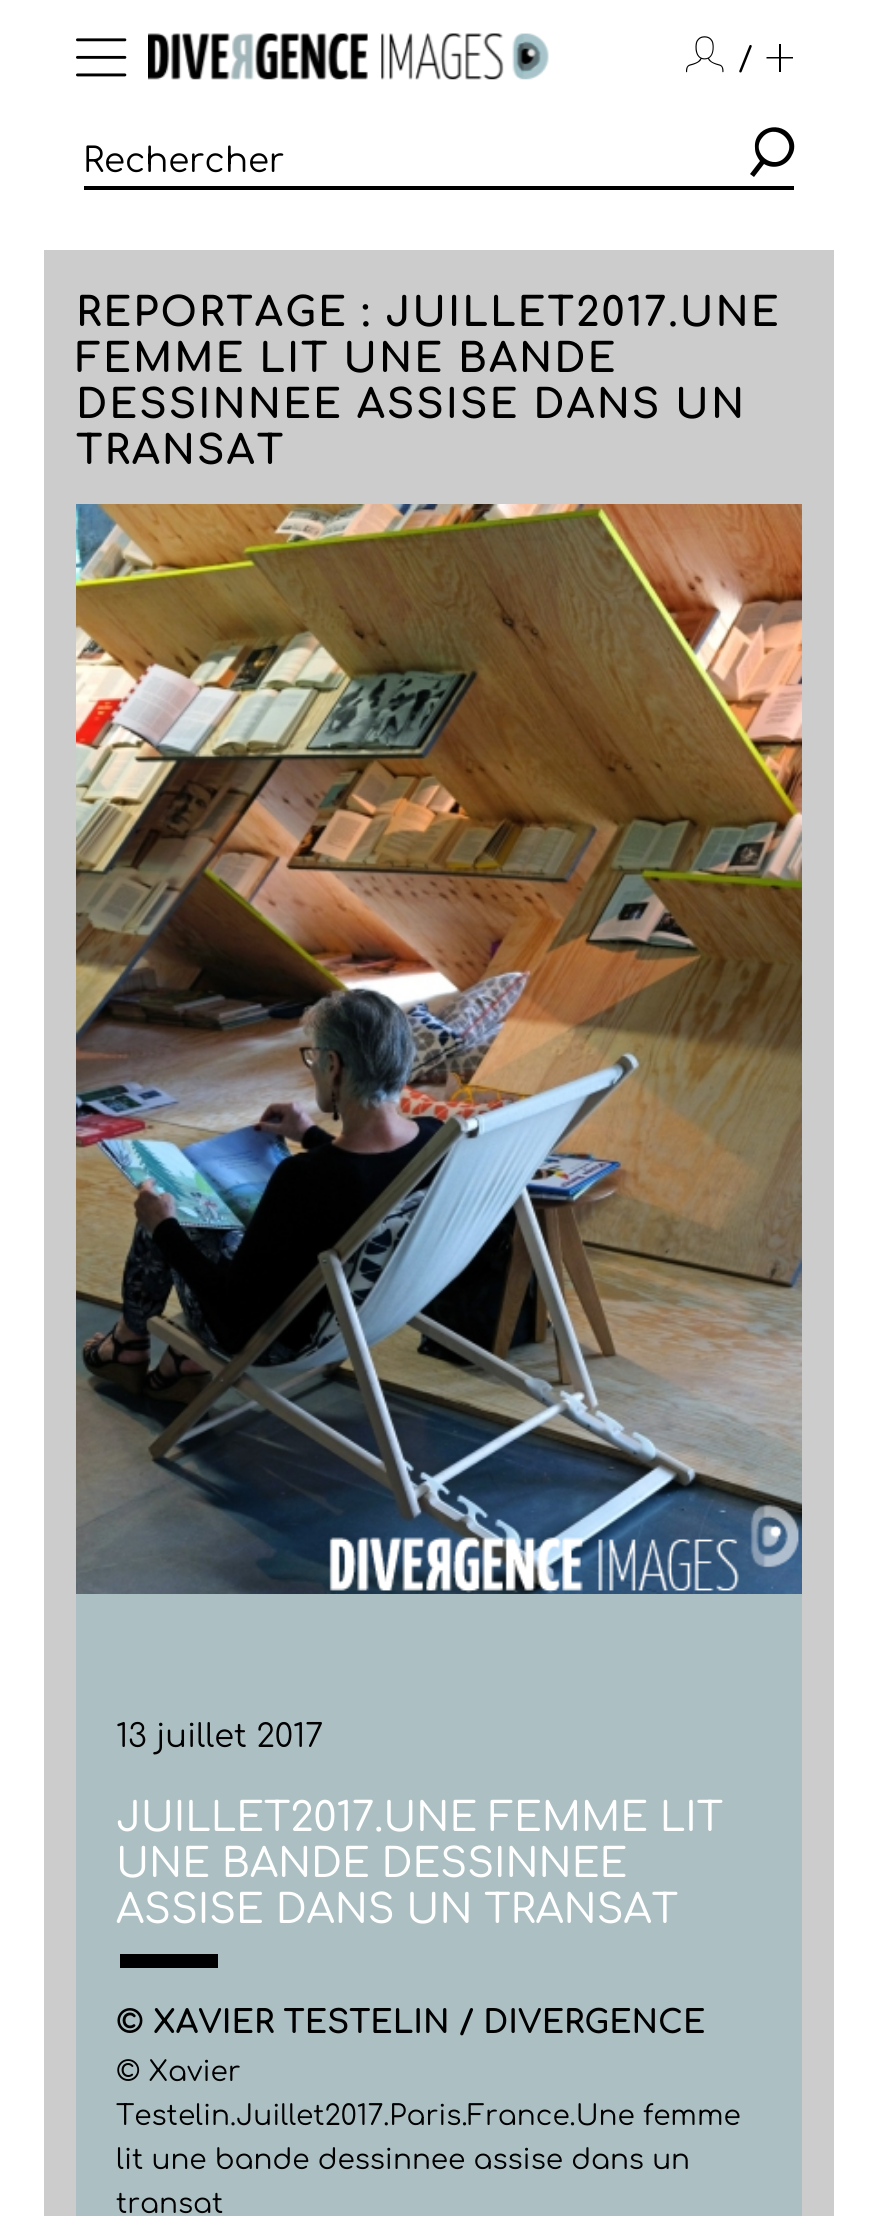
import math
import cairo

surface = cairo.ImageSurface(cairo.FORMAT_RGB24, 877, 2216)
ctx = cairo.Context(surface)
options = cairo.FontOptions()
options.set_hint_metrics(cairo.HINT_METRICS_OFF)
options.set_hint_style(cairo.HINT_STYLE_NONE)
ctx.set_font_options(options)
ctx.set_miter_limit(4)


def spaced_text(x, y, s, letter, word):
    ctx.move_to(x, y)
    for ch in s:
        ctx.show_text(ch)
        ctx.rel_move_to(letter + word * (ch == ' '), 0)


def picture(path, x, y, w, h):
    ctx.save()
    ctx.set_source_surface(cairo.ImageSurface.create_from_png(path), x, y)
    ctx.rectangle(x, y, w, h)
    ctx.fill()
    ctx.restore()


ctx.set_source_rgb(1, 1, 1)
ctx.paint()
ctx.set_source_rgb(0.8, 0.8, 0.8)
ctx.rectangle(44, 250, 790, 1966)
ctx.fill()
picture("img1.png", 76, 38, 51, 39)
picture("img2.png", 148, 33, 401, 47)
picture("img3.png", 686, 36, 38, 37)
ctx.select_font_face("Comfortaa")
ctx.set_font_size(32)
ctx.set_source_rgb(0, 0, 0)
spaced_text(738, 70, "/", 2, 0)
ctx.new_path()
ctx.move_to(779, 44)
ctx.line_to(781, 44)
ctx.line_to(781, 72)
ctx.line_to(779, 72)
ctx.close_path()
ctx.move_to(766.5, 57)
ctx.line_to(793, 57)
ctx.line_to(793, 58.5)
ctx.line_to(766.5, 58.5)
ctx.close_path()
ctx.fill()
ctx.rectangle(84, 186, 710, 4)
ctx.fill()
ctx.set_font_size(34)
ctx.move_to(83, 172)
ctx.show_text("Rechercher")
ctx.new_path()
ctx.move_to(754, 177)
ctx.line_to(764, 164)
ctx.curve_to(774, 170, 787, 166, 792, 155)
ctx.curve_to(795, 150, 795, 143, 792, 138)
ctx.curve_to(782, 119, 753, 127, 755, 148)
ctx.curve_to(755, 153, 757, 157, 760, 161)
ctx.line_to(750, 174)
ctx.close_path()
ctx.move_to(786, 156)
ctx.curve_to(774, 172, 750, 153, 762, 138)
ctx.curve_to(774, 122, 798, 140, 786, 156)
ctx.close_path()
ctx.fill()
ctx.select_font_face("Comfortaa", cairo.FONT_SLANT_NORMAL, cairo.FONT_WEIGHT_BOLD)
ctx.set_font_size(40)
spaced_text(76, 326, "REPORTAGE : JUILLET2017.UNE", 2, 0)
spaced_text(76, 372, "FEMME LIT UNE BANDE", 2, 0)
spaced_text(76, 418, "DESSINNEE ASSISE DANS UN", 2, 0)
spaced_text(76, 464, "TRANSAT", 2, 0)
ctx.set_source_rgb(0.675, 0.749, 0.765)
ctx.rectangle(76, 1594, 726, 622)
ctx.fill()
picture("img4.png", 76, 504, 726, 1090)
ctx.select_font_face("Comfortaa")
ctx.set_font_size(32)
ctx.set_source_rgb(0, 0, 0)
ctx.move_to(116, 1747)
ctx.show_text("13 juillet 2017")
ctx.select_font_face("Comfortaa Medium")
ctx.set_font_size(40)
ctx.set_source_rgb(1, 1, 1)
ctx.move_to(116, 1831)
ctx.show_text("JUILLET2017.UNE FEMME LIT")
ctx.move_to(116, 1877)
ctx.show_text("UNE BANDE DESSINNEE")
ctx.move_to(116, 1923)
ctx.show_text("ASSISE DANS UN TRANSAT")
ctx.set_source_rgb(0, 0, 0)
ctx.rectangle(120, 1954, 98, 14)
ctx.fill()
ctx.select_font_face("Comfortaa", cairo.FONT_SLANT_NORMAL, cairo.FONT_WEIGHT_BOLD)
ctx.set_font_size(32)
ctx.move_to(116, 2033)
ctx.show_text("© XAVIER TESTELIN / DIVERGENCE")
ctx.select_font_face("Comfortaa")
ctx.set_font_size(28)
ctx.move_to(116, 2081)
ctx.show_text("© Xavier")
ctx.move_to(116, 2125)
ctx.show_text("Testelin.Juillet2017.Paris.France.Une femme")
ctx.move_to(116, 2169)
ctx.show_text("lit une bande dessinnee assise dans un")
ctx.move_to(116, 2213)
ctx.show_text("transat")
surface.write_to_png("page.png")
